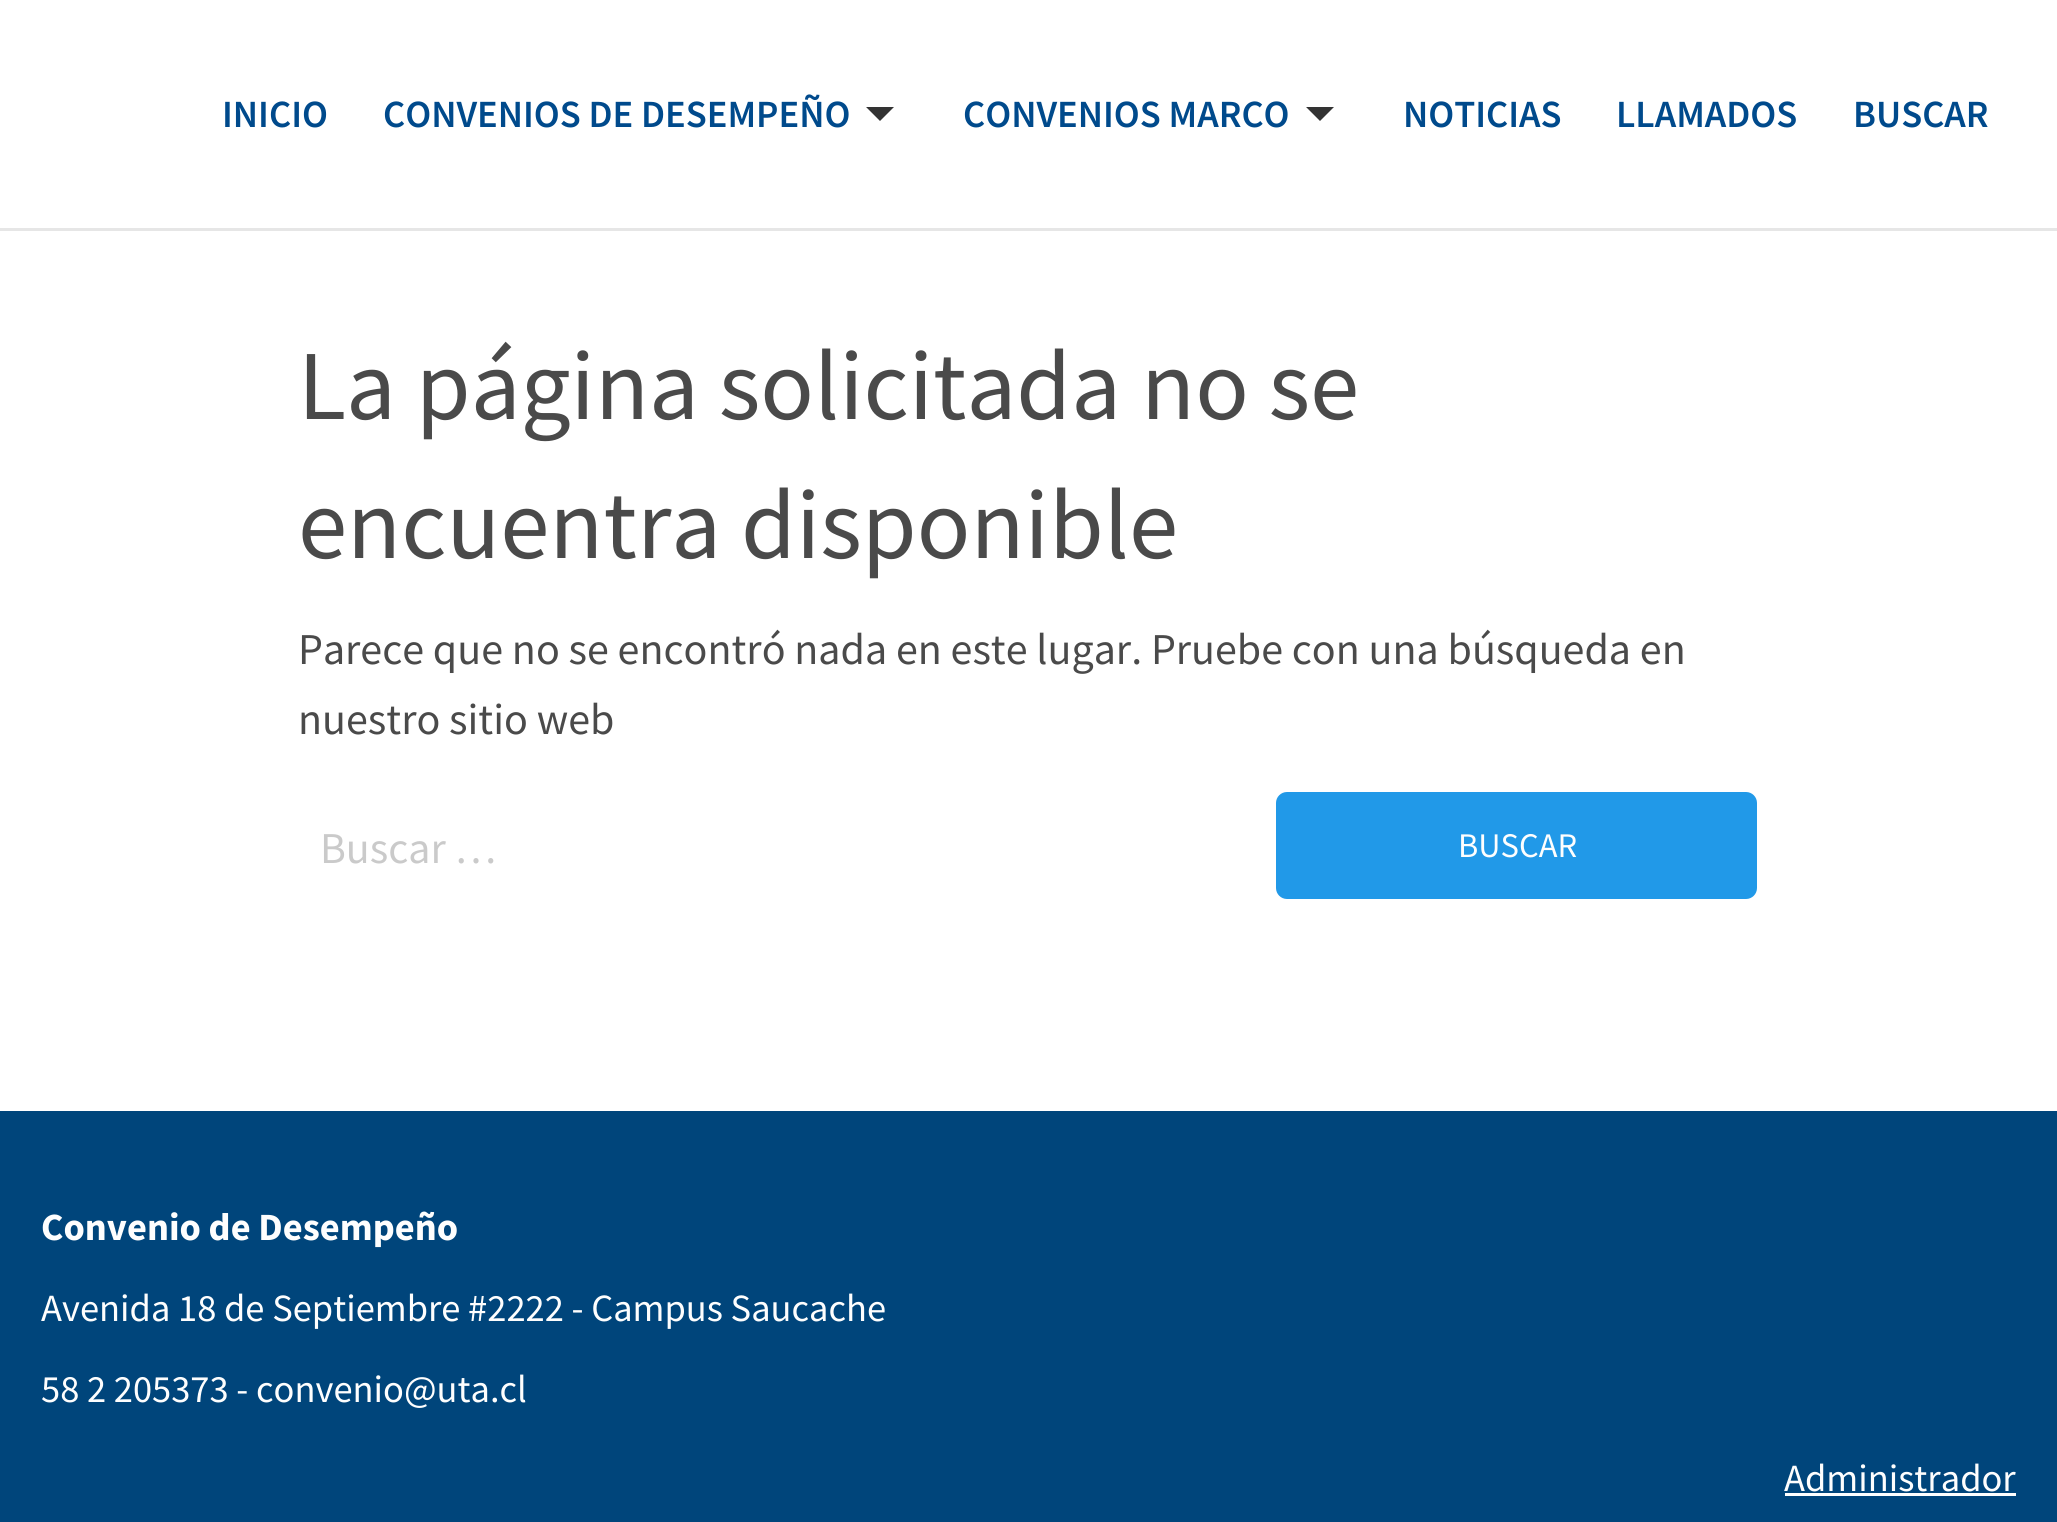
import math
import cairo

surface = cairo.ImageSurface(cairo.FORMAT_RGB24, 2057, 1522)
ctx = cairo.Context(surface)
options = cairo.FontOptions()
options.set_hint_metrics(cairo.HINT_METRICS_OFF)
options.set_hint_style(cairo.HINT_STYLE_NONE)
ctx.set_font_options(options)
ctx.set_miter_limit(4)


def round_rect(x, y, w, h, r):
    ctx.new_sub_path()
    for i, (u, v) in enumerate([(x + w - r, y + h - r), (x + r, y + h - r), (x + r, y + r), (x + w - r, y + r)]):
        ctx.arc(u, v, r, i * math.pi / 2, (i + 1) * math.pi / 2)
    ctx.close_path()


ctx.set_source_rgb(1, 1, 1)
ctx.paint()
ctx.set_source_rgb(0.902, 0.902, 0.902)
ctx.rectangle(0, 228, 2057, 3)
ctx.fill()
ctx.select_font_face("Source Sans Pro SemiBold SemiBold")
ctx.set_font_size(38.5)
ctx.set_source_rgb(0, 0.29, 0.549)
ctx.move_to(222, 127)
ctx.show_text("INICIO")
ctx.move_to(383, 127)
ctx.show_text("CONVENIOS DE DESEMPEÑO")
ctx.set_source_rgb(0.2, 0.2, 0.2)
ctx.new_path()
ctx.move_to(866, 107)
ctx.line_to(894, 107)
ctx.line_to(880, 121)
ctx.close_path()
ctx.fill()
ctx.set_source_rgb(0, 0.29, 0.549)
ctx.move_to(963, 127)
ctx.show_text("CONVENIOS MARCO")
ctx.set_source_rgb(0.2, 0.2, 0.2)
ctx.new_path()
ctx.move_to(1306, 107)
ctx.line_to(1334, 107)
ctx.line_to(1320, 121)
ctx.close_path()
ctx.fill()
ctx.set_source_rgb(0, 0.29, 0.549)
ctx.move_to(1403, 127)
ctx.show_text("NOTICIAS")
ctx.move_to(1616, 127)
ctx.show_text("LLAMADOS")
ctx.move_to(1853, 127)
ctx.show_text("BUSCAR")
ctx.select_font_face("Source Sans Pro")
ctx.set_font_size(99)
ctx.set_source_rgb(0.29, 0.29, 0.29)
ctx.move_to(298, 419)
ctx.show_text("La página solicitada no se")
ctx.move_to(298, 558)
ctx.show_text("encuentra disponible")
ctx.set_font_size(44)
ctx.move_to(298, 664)
ctx.show_text("Parece que no se encontró nada en este lugar. Pruebe con una búsqueda en")
ctx.move_to(298, 734)
ctx.show_text("nuestro sitio web")
ctx.set_source_rgb(0.792, 0.792, 0.792)
ctx.move_to(320, 863)
ctx.show_text("Buscar …")
ctx.set_source_rgb(0.129, 0.6, 0.91)
round_rect(1276, 792, 481, 107, 11)
ctx.fill()
ctx.set_font_size(34.5)
ctx.set_source_rgb(0.996, 0.996, 0.996)
ctx.move_to(1458, 857)
ctx.show_text("BUSCAR")
ctx.set_source_rgb(0, 0.271, 0.482)
ctx.rectangle(0, 1111, 2057, 411)
ctx.fill()
ctx.select_font_face("Source Sans Pro", cairo.FONT_SLANT_NORMAL, cairo.FONT_WEIGHT_BOLD)
ctx.set_font_size(38.5)
ctx.set_source_rgb(0.996, 0.996, 0.996)
ctx.move_to(41, 1240)
ctx.show_text("Convenio de Desempeño")
ctx.select_font_face("Source Sans Pro")
ctx.move_to(41, 1321)
ctx.show_text("Avenida 18 de Septiembre #2222 - Campus Saucache")
ctx.move_to(41, 1402)
ctx.show_text("58 2 205373 - convenio@uta.cl")
ctx.move_to(1784, 1491)
ctx.show_text("Administrador")
ctx.set_source_rgb(1, 1, 1)
ctx.rectangle(1785, 1493, 231, 3)
ctx.fill()
surface.write_to_png("page.png")
